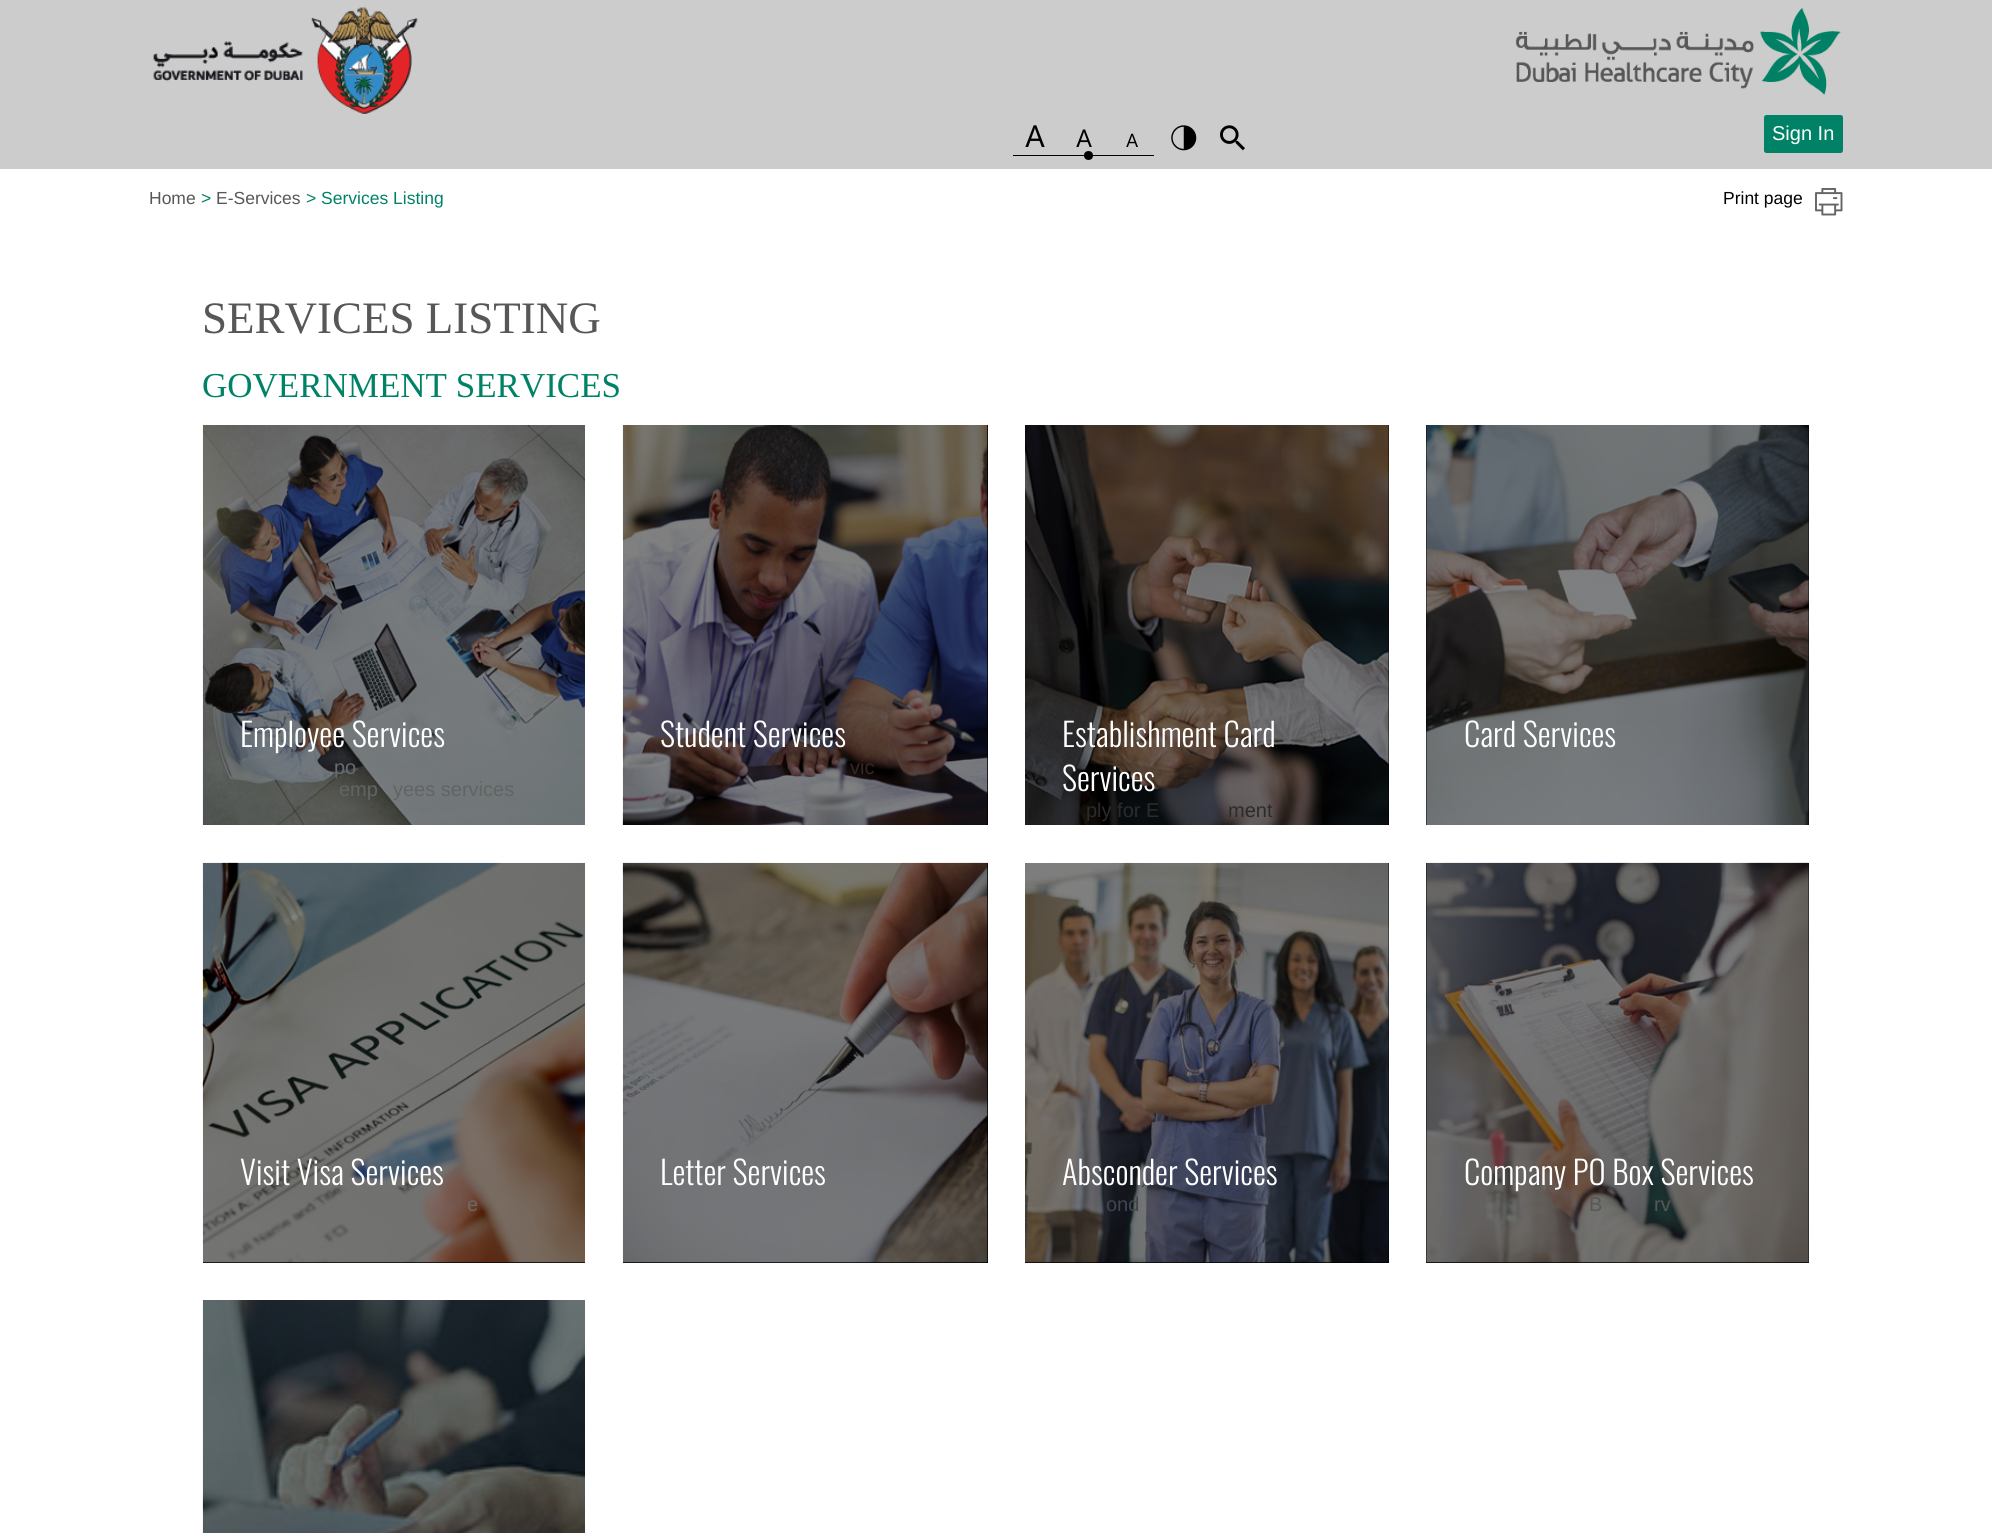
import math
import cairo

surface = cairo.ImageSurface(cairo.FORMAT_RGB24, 1992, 1533)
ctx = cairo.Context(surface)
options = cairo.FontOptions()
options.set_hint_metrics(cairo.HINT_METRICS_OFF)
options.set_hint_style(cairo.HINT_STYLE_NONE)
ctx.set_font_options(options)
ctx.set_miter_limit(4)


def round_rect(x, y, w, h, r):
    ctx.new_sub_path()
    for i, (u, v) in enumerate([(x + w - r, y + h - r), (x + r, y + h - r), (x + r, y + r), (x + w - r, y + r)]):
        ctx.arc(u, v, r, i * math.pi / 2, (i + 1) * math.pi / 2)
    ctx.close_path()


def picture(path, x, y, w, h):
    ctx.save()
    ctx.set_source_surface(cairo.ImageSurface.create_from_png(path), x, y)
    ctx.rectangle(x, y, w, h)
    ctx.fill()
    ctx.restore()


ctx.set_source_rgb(1, 1, 1)
ctx.paint()
ctx.set_source_rgb(0.8, 0.8, 0.8)
ctx.rectangle(0, 0, 1992, 169)
ctx.fill()
picture("img1.png", 153, 7, 265, 107)
picture("img2.png", 1515, 7, 326, 88)
ctx.set_source_rgb(0, 0, 0)
ctx.rectangle(1013, 155, 141, 1)
ctx.fill()
ctx.select_font_face("Segoe UI")
ctx.set_font_size(31)
ctx.move_to(1025, 147)
ctx.show_text("A")
ctx.set_font_size(25)
ctx.move_to(1076, 147)
ctx.show_text("A")
ctx.set_font_size(19)
ctx.move_to(1126, 147)
ctx.show_text("A")
ctx.new_path()
ctx.arc(1088.5, 155.5, 4.5, 0, 2 * math.pi)
ctx.fill()
picture("img3.png", 1171, 125, 26, 26)
picture("img4.png", 1220, 125, 25, 26)
ctx.set_source_rgb(0, 0.51, 0.4)
round_rect(1764, 115, 79, 38, 2.5)
ctx.fill()
ctx.select_font_face("Liberation Sans")
ctx.set_font_size(20)
ctx.set_source_rgb(1, 1, 1)
ctx.move_to(1772, 140)
ctx.show_text("Sign In")
ctx.set_font_size(17.5)
ctx.set_source_rgb(0.341, 0.345, 0.337)
ctx.move_to(149, 204)
ctx.show_text("Home")
ctx.set_source_rgb(0, 0.51, 0.4)
ctx.move_to(201, 204)
ctx.show_text(">")
ctx.set_source_rgb(0.341, 0.345, 0.337)
ctx.move_to(216, 204)
ctx.show_text("E-Services")
ctx.set_source_rgb(0, 0.51, 0.4)
ctx.move_to(306, 204)
ctx.show_text("> Services Listing")
ctx.set_source_rgb(0, 0, 0)
ctx.move_to(1723, 204)
ctx.show_text("Print page")
picture("img5.png", 1815, 188, 28, 28)
ctx.select_font_face("Liberation Serif")
ctx.set_font_size(45)
ctx.set_source_rgb(0.341, 0.345, 0.337)
ctx.move_to(202, 333)
ctx.show_text("SERVICES LISTING")
ctx.set_font_size(35)
ctx.set_source_rgb(0, 0.51, 0.4)
ctx.move_to(202, 397)
ctx.show_text("GOVERNMENT SERVICES")
ctx.set_source_rgb(0, 0, 0)
ctx.rectangle(203, 425, 382, 400)
ctx.fill()
picture("img6.png", 202, 425, 383, 400)
ctx.select_font_face("Oswald Light")
ctx.set_font_size(32.5)
ctx.set_source_rgb(1, 1, 1)
ctx.move_to(240, 747)
ctx.show_text("Employee Services")
ctx.select_font_face("Liberation Sans")
ctx.set_font_size(20)
ctx.set_source_rgb(0.396, 0.416, 0.427)
ctx.move_to(334, 774)
ctx.show_text("po")
ctx.set_source_rgb(0.376, 0.392, 0.388)
ctx.move_to(339, 796)
ctx.show_text("emp")
ctx.move_to(393, 796)
ctx.show_text("yees services")
ctx.set_source_rgb(0, 0, 0)
ctx.rectangle(623, 425, 365, 400)
ctx.fill()
picture("img7.png", 622, 425, 366, 400)
ctx.select_font_face("Oswald Light")
ctx.set_font_size(32.5)
ctx.set_source_rgb(1, 1, 1)
ctx.move_to(660, 747)
ctx.show_text("Student Services")
ctx.select_font_face("Liberation Sans")
ctx.set_font_size(20)
ctx.set_source_rgb(0.196, 0.149, 0.149)
ctx.move_to(850, 774)
ctx.show_text("vic")
ctx.set_source_rgb(0, 0, 0)
ctx.rectangle(1025, 425, 364, 400)
ctx.fill()
picture("img8.png", 1025, 425, 364, 400)
ctx.select_font_face("Oswald Light")
ctx.set_font_size(32.5)
ctx.set_source_rgb(1, 1, 1)
ctx.move_to(1062, 747)
ctx.show_text("Establishment Card")
ctx.move_to(1062, 791)
ctx.show_text("Services")
ctx.select_font_face("Liberation Sans")
ctx.set_font_size(20)
ctx.set_source_rgb(0.173, 0.169, 0.173)
ctx.move_to(1086, 817)
ctx.show_text("ply for E")
ctx.move_to(1228, 817)
ctx.show_text("ment")
ctx.set_source_rgb(0, 0, 0)
ctx.rectangle(1426, 425, 383, 400)
ctx.fill()
picture("img9.png", 1426, 425, 383, 400)
ctx.select_font_face("Oswald Light")
ctx.set_font_size(32.5)
ctx.set_source_rgb(1, 1, 1)
ctx.move_to(1464, 747)
ctx.show_text("Card Services")
ctx.set_source_rgb(0, 0, 0)
ctx.rectangle(203, 863, 382, 400)
ctx.fill()
picture("img10.png", 202, 862, 383, 401)
ctx.set_source_rgb(1, 1, 1)
ctx.move_to(240, 1185)
ctx.show_text("Visit Visa Services")
ctx.select_font_face("Liberation Sans")
ctx.set_font_size(20)
ctx.set_source_rgb(0.435, 0.404, 0.384)
ctx.move_to(467, 1211)
ctx.show_text("e")
ctx.set_source_rgb(0, 0, 0)
ctx.rectangle(623, 863, 365, 400)
ctx.fill()
picture("img11.png", 622, 862, 366, 401)
ctx.select_font_face("Oswald Light")
ctx.set_font_size(32.5)
ctx.set_source_rgb(1, 1, 1)
ctx.move_to(660, 1185)
ctx.show_text("Letter Services")
ctx.set_source_rgb(0, 0, 0)
ctx.rectangle(1025, 863, 364, 400)
ctx.fill()
picture("img12.png", 1025, 862, 364, 401)
ctx.set_source_rgb(1, 1, 1)
ctx.move_to(1062, 1185)
ctx.show_text("Absconder Services")
ctx.select_font_face("Liberation Sans")
ctx.set_font_size(20)
ctx.set_source_rgb(0.259, 0.267, 0.314)
ctx.move_to(1106, 1211)
ctx.show_text("ond")
ctx.set_source_rgb(0, 0, 0)
ctx.rectangle(1426, 863, 383, 400)
ctx.fill()
picture("img13.png", 1426, 862, 383, 401)
ctx.select_font_face("Oswald Light")
ctx.set_font_size(32.5)
ctx.set_source_rgb(1, 1, 1)
ctx.move_to(1464, 1185)
ctx.show_text("Company PO Box Services")
ctx.select_font_face("Liberation Sans")
ctx.set_font_size(20)
ctx.set_source_rgb(0.341, 0.345, 0.337)
ctx.move_to(1589, 1211)
ctx.show_text("B")
ctx.move_to(1654, 1211)
ctx.show_text("rv")
ctx.set_source_rgb(0, 0, 0)
ctx.rectangle(203, 1300, 382, 233)
ctx.fill()
picture("img14.png", 202, 1300, 383, 233)
surface.write_to_png("page.png")
